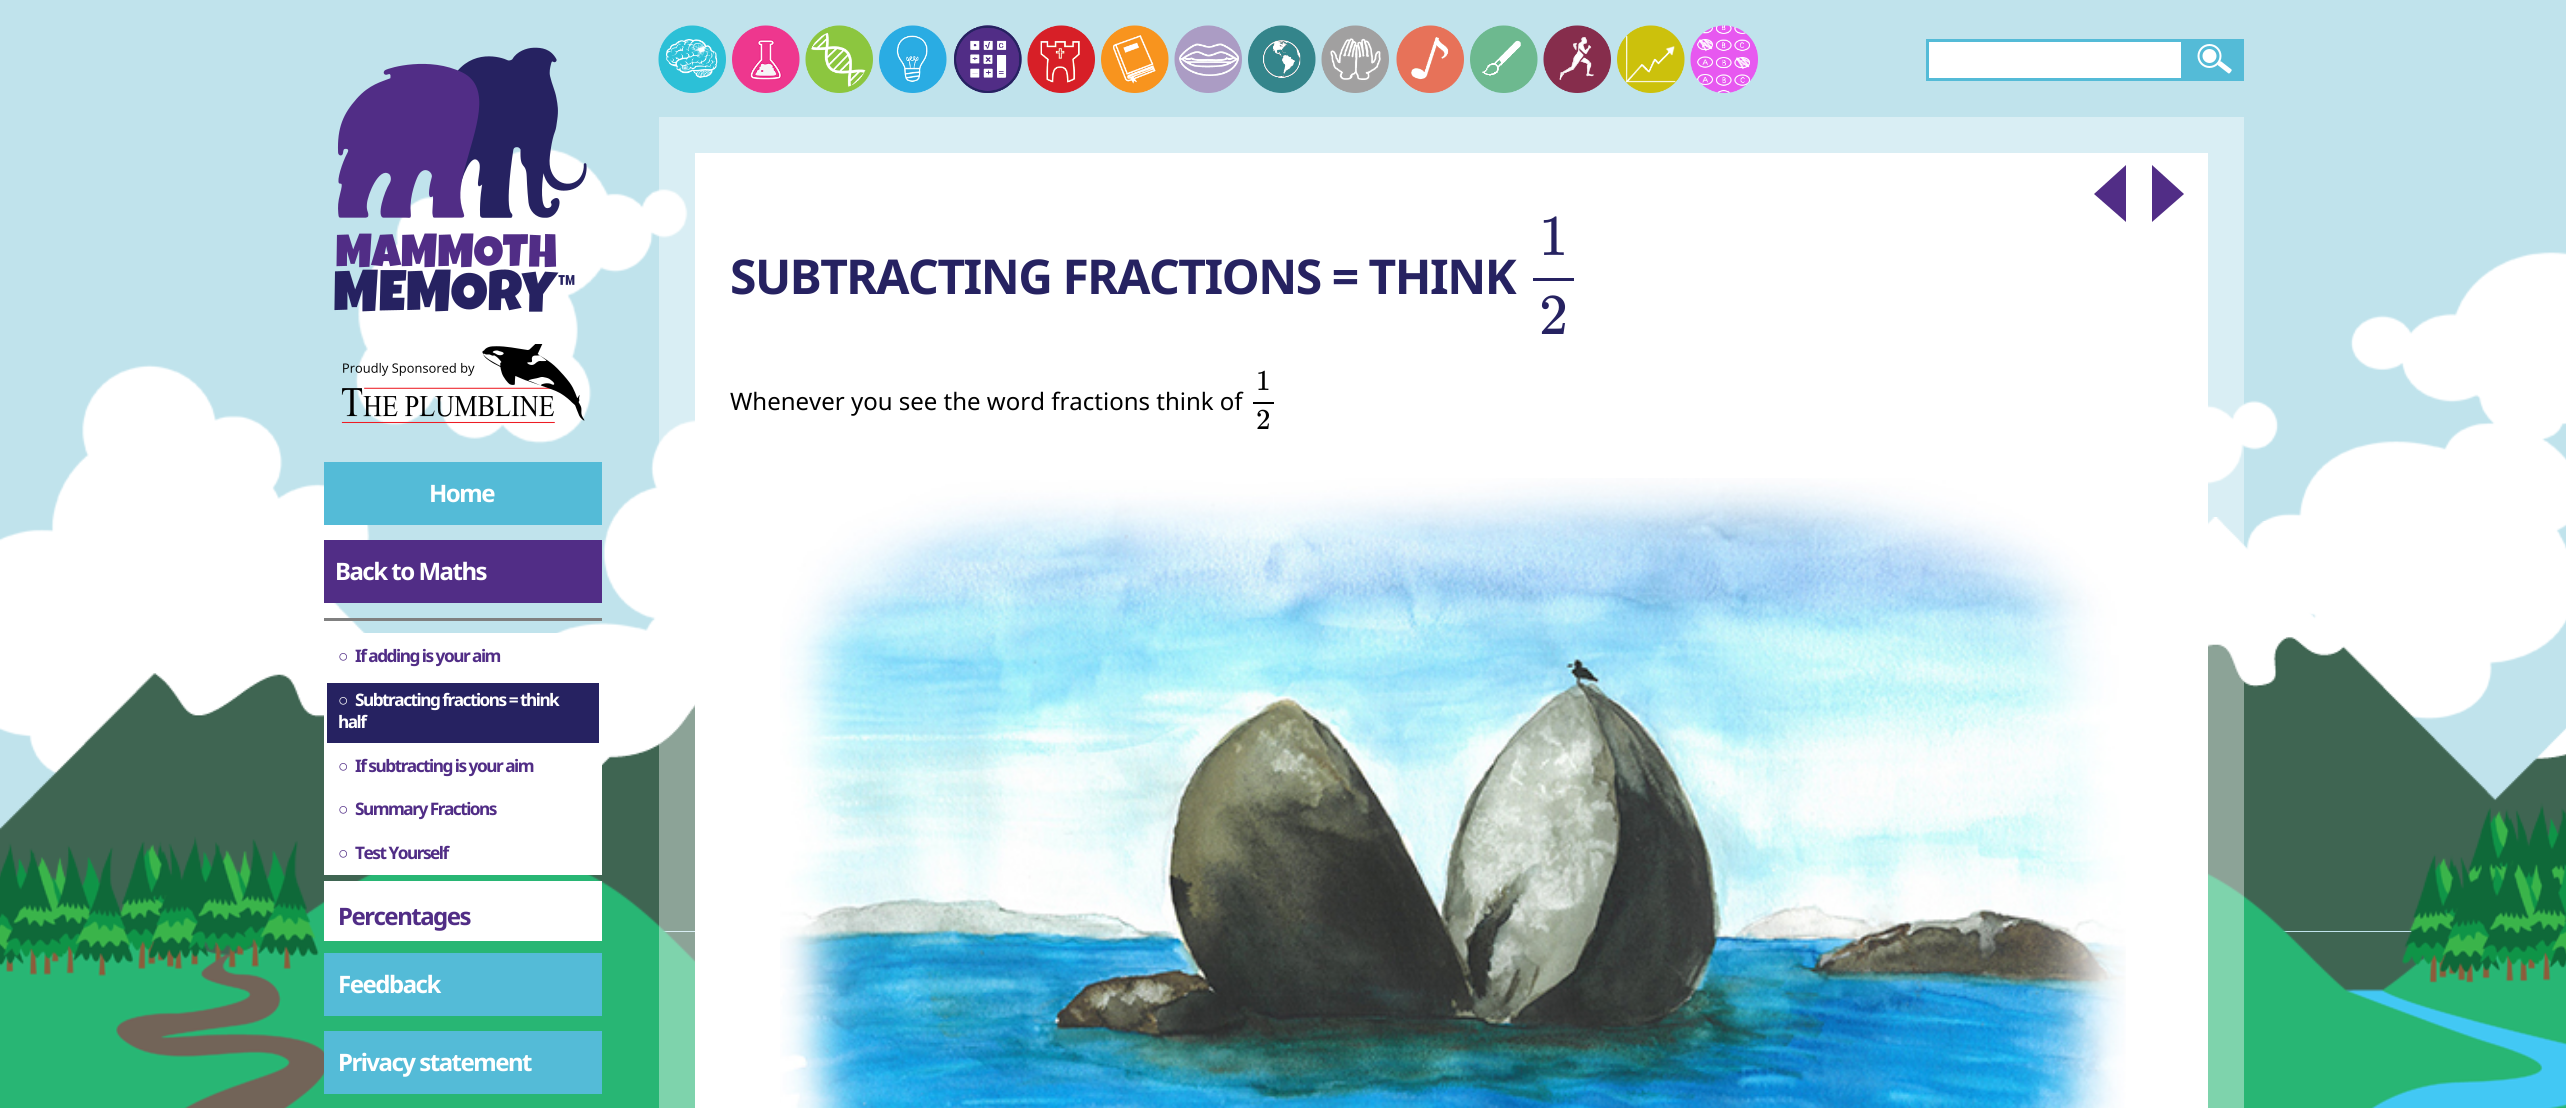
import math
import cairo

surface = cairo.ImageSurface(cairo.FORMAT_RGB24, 2566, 1108)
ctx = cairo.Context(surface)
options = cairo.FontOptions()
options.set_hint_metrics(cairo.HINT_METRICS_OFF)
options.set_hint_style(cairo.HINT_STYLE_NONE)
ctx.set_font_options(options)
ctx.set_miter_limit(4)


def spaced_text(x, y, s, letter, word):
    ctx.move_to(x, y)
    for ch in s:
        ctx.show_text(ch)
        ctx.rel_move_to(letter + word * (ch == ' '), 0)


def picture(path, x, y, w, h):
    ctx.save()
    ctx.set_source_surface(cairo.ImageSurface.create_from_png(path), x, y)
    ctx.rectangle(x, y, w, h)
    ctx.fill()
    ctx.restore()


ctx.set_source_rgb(0.753, 0.89, 0.925)
ctx.paint()
picture("img1.png", 0, 148, 2566, 627)
picture("img2.png", 0, 517, 2566, 414)
ctx.set_source_rgb(0.247, 0.396, 0.322)
ctx.rectangle(66, 932, 2359, 60)
ctx.fill()
picture("img3.png", 0, 802, 2566, 306)
picture("img4.png", 658, 25, 68, 68)
picture("img5.png", 732, 25, 68, 68)
picture("img6.png", 805, 25, 68, 68)
picture("img7.png", 879, 25, 68, 68)
picture("img8.png", 954, 25, 68, 68)
picture("img9.png", 954, 25, 68, 68)
picture("img10.png", 1027, 25, 68, 68)
picture("img11.png", 1101, 25, 68, 68)
picture("img12.png", 1174, 25, 68, 68)
picture("img13.png", 1248, 25, 68, 68)
picture("img14.png", 1321, 25, 68, 68)
picture("img15.png", 1396, 25, 68, 68)
picture("img16.png", 1470, 25, 68, 68)
picture("img17.png", 1543, 25, 68, 68)
picture("img18.png", 1617, 25, 68, 68)
picture("img19.png", 1690, 25, 68, 68)
ctx.set_source_rgb(1, 1, 1)
ctx.rectangle(1927.5, 40.5, 255, 39)
ctx.fill_preserve()
ctx.set_source_rgb(0.329, 0.733, 0.843)
ctx.set_line_width(3)
ctx.stroke()
ctx.rectangle(2184, 39, 60, 42)
ctx.fill()
picture("img20.png", 2197, 44, 35, 30)
ctx.set_source_rgba(1, 1, 1, 0.4)
ctx.rectangle(659, 117, 1585, 991)
ctx.fill()
ctx.set_source_rgb(1, 1, 1)
ctx.rectangle(695, 153, 1513, 955)
ctx.fill()
ctx.set_source_rgb(0.318, 0.176, 0.525)
ctx.new_path()
ctx.move_to(2126, 165)
ctx.line_to(2126, 222)
ctx.line_to(2094, 194)
ctx.close_path()
ctx.fill()
ctx.new_path()
ctx.move_to(2152, 222)
ctx.line_to(2152, 165)
ctx.line_to(2184, 194)
ctx.close_path()
ctx.fill()
ctx.select_font_face("Noto Sans", cairo.FONT_SLANT_NORMAL, cairo.FONT_WEIGHT_BOLD)
ctx.set_font_size(48)
ctx.set_source_rgb(0.149, 0.133, 0.38)
spaced_text(730, 294, "SUBTRACTING FRACTIONS = THINK", -1.5, 0)
ctx.select_font_face("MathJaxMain")
ctx.set_font_size(58)
ctx.move_to(1539, 255)
ctx.show_text("1")
ctx.rectangle(1533, 278, 41, 3)
ctx.fill()
ctx.move_to(1539, 334)
ctx.show_text("2")
ctx.select_font_face("Noto Sans")
ctx.set_font_size(24)
ctx.set_source_rgb(0, 0, 0)
ctx.move_to(730, 410)
ctx.show_text("Whenever you see the word fractions think of")
ctx.select_font_face("MathJaxMain")
ctx.set_font_size(29)
ctx.move_to(1256, 390)
ctx.show_text("1")
ctx.rectangle(1253, 402, 21, 2)
ctx.fill()
ctx.move_to(1256, 429)
ctx.show_text("2")
picture("img21.png", 780, 478, 1346, 630)
picture("img22.png", 334, 47, 253, 265)
picture("img23.png", 341, 344, 244, 80)
ctx.set_source_rgb(0.329, 0.733, 0.843)
ctx.rectangle(324, 462, 278, 63)
ctx.fill()
ctx.select_font_face("Noto Sans", cairo.FONT_SLANT_NORMAL, cairo.FONT_WEIGHT_BOLD)
ctx.set_font_size(24)
ctx.set_source_rgb(1, 1, 1)
spaced_text(429, 502, "Home", -1.5, 0)
ctx.set_source_rgb(0.318, 0.176, 0.525)
ctx.rectangle(324, 540, 278, 63)
ctx.fill()
ctx.set_source_rgb(1, 1, 1)
spaced_text(335, 580, "Back to Maths", -1.5, 0)
ctx.set_source_rgb(0.502, 0.502, 0.502)
ctx.rectangle(324, 618, 278, 3)
ctx.fill()
ctx.set_source_rgb(1, 1, 1)
ctx.rectangle(324, 633, 278, 242)
ctx.fill()
ctx.select_font_face("Liberation Sans", cairo.FONT_SLANT_NORMAL, cairo.FONT_WEIGHT_BOLD)
ctx.set_font_size(17.25)
ctx.set_source_rgb(0.318, 0.176, 0.525)
spaced_text(338, 662, "○", -1.5, 0)
ctx.select_font_face("Noto Sans", cairo.FONT_SLANT_NORMAL, cairo.FONT_WEIGHT_BOLD)
spaced_text(355, 662, "If adding is your aim", -1.5, 0)
ctx.set_source_rgb(0.149, 0.133, 0.38)
ctx.rectangle(327, 683, 272, 60)
ctx.fill()
ctx.select_font_face("Liberation Sans", cairo.FONT_SLANT_NORMAL, cairo.FONT_WEIGHT_BOLD)
ctx.set_source_rgb(1, 1, 1)
spaced_text(338, 706, "○", -1.5, 0)
ctx.select_font_face("Noto Sans", cairo.FONT_SLANT_NORMAL, cairo.FONT_WEIGHT_BOLD)
spaced_text(355, 706, "Subtracting fractions = think", -1.5, 0)
spaced_text(338, 728, "half", -1.5, 0)
ctx.select_font_face("Liberation Sans", cairo.FONT_SLANT_NORMAL, cairo.FONT_WEIGHT_BOLD)
ctx.set_source_rgb(0.318, 0.176, 0.525)
spaced_text(338, 772, "○", -1.5, 0)
ctx.select_font_face("Noto Sans", cairo.FONT_SLANT_NORMAL, cairo.FONT_WEIGHT_BOLD)
spaced_text(355, 772, "If subtracting is your aim", -1.5, 0)
ctx.select_font_face("Liberation Sans", cairo.FONT_SLANT_NORMAL, cairo.FONT_WEIGHT_BOLD)
spaced_text(338, 815, "○", -1.5, 0)
ctx.select_font_face("Noto Sans", cairo.FONT_SLANT_NORMAL, cairo.FONT_WEIGHT_BOLD)
spaced_text(355, 815, "Summary Fractions", -1.5, 0)
ctx.select_font_face("Liberation Sans", cairo.FONT_SLANT_NORMAL, cairo.FONT_WEIGHT_BOLD)
spaced_text(338, 859, "○", -1.5, 0)
ctx.select_font_face("Noto Sans", cairo.FONT_SLANT_NORMAL, cairo.FONT_WEIGHT_BOLD)
spaced_text(355, 859, "Test Yourself", -1.5, 0)
ctx.set_source_rgb(1, 1, 1)
ctx.rectangle(324, 881, 278, 60)
ctx.fill()
ctx.set_font_size(24)
ctx.set_source_rgb(0.318, 0.176, 0.525)
spaced_text(338, 925, "Percentages", -1.5, 0)
ctx.set_source_rgb(0.329, 0.733, 0.843)
ctx.rectangle(324, 953, 278, 63)
ctx.fill()
ctx.set_source_rgb(1, 1, 1)
spaced_text(338, 993, "Feedback", -1.5, 0)
ctx.set_source_rgb(0.329, 0.733, 0.843)
ctx.rectangle(324, 1031, 278, 63)
ctx.fill()
ctx.set_source_rgb(1, 1, 1)
spaced_text(338, 1071, "Privacy statement", -1.5, 0)
surface.write_to_png("page.png")
